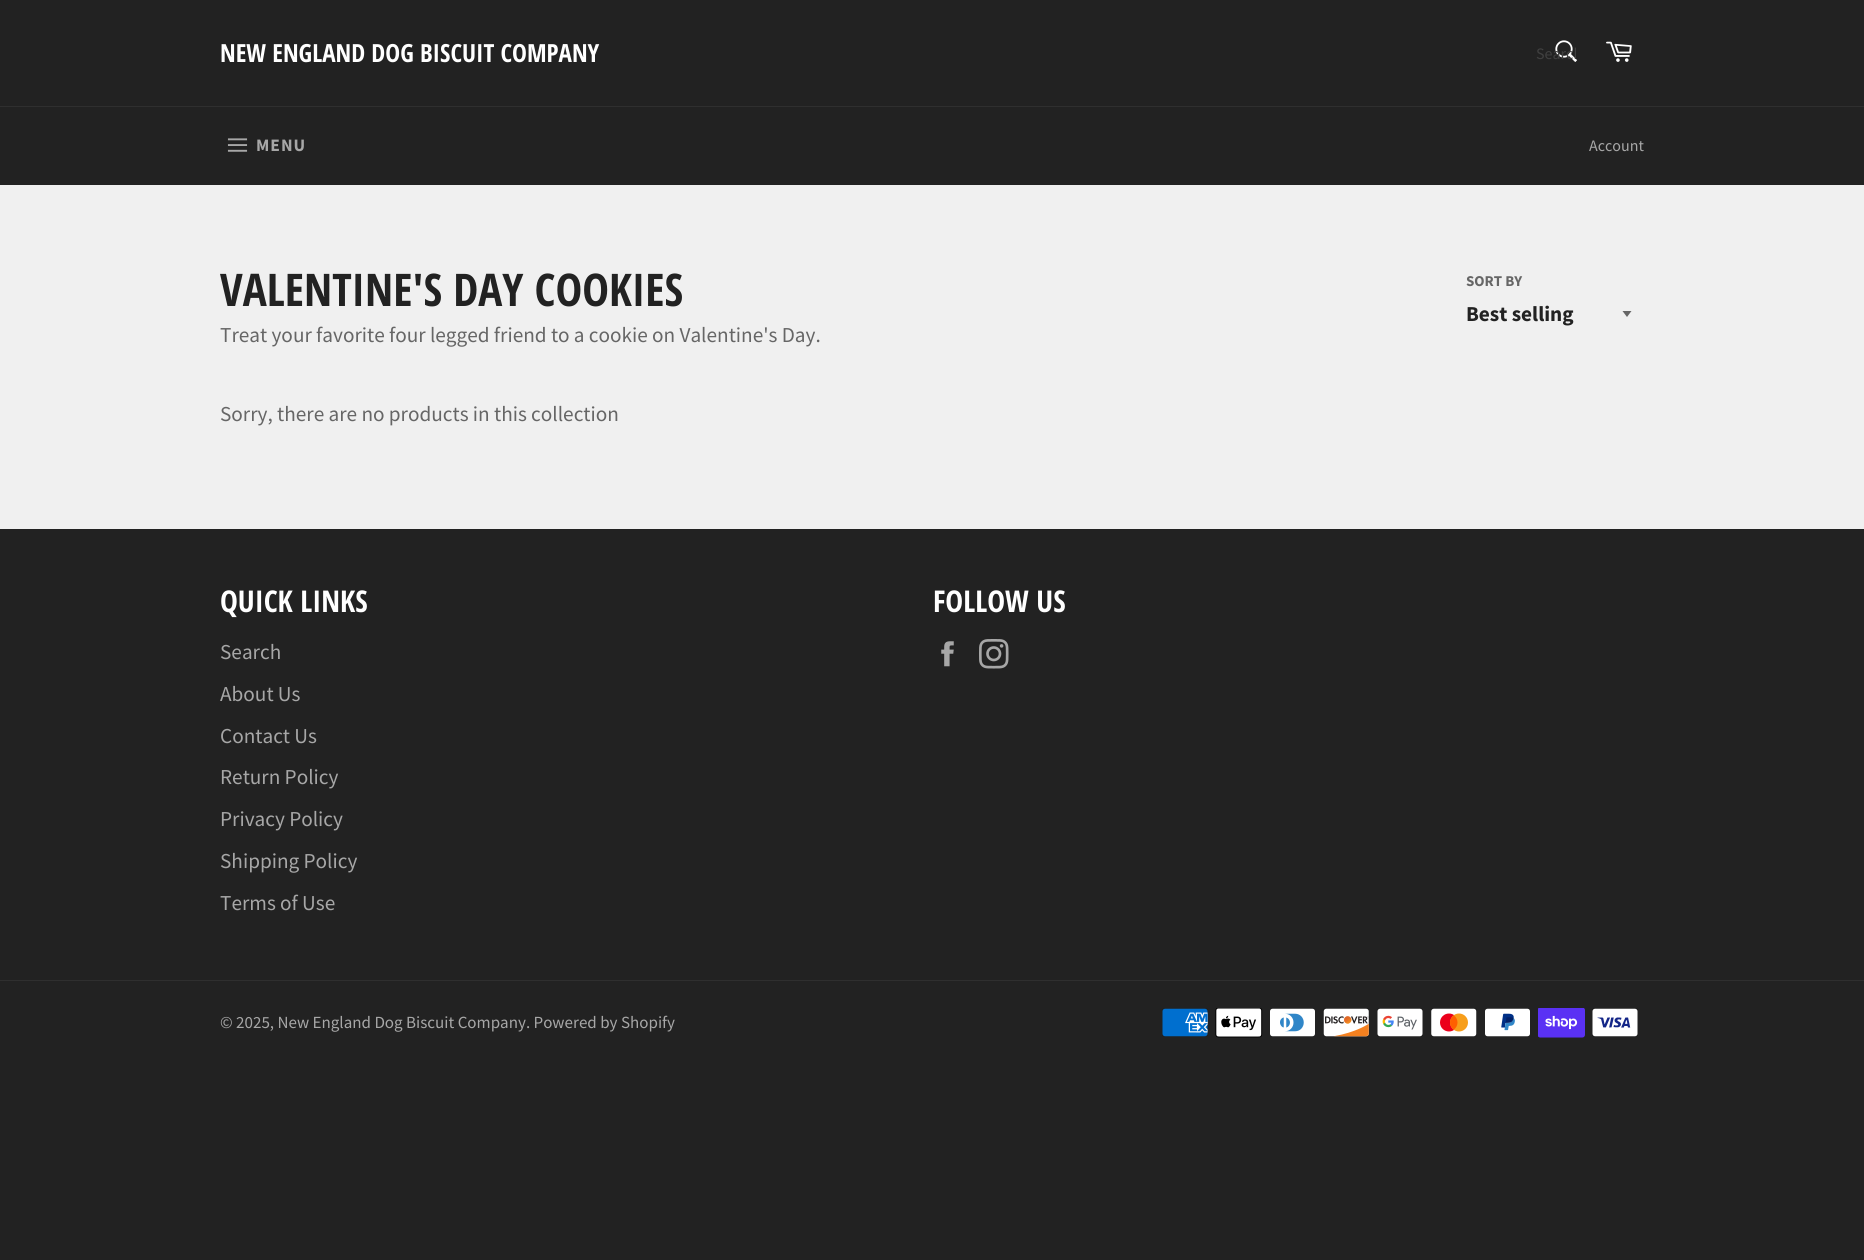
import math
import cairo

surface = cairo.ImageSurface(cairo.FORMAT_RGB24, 1864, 1260)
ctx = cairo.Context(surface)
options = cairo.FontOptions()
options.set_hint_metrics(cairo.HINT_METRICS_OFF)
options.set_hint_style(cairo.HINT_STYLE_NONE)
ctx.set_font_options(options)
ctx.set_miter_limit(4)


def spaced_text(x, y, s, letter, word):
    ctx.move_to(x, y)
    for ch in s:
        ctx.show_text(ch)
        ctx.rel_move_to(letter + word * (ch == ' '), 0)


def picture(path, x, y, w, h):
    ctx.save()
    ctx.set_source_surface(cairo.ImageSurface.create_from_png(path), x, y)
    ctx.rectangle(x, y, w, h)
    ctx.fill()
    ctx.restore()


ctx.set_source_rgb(0.133, 0.133, 0.133)
ctx.paint()
ctx.set_source_rgb(0.941, 0.941, 0.941)
ctx.rectangle(0, 185, 1864, 344)
ctx.fill()
ctx.select_font_face("Open Sans Condensed", cairo.FONT_SLANT_NORMAL, cairo.FONT_WEIGHT_BOLD)
ctx.set_font_size(25)
ctx.set_source_rgb(1, 1, 1)
ctx.move_to(220, 62)
ctx.show_text("NEW ENGLAND DOG BISCUIT COMPANY")
picture("img1.png", 1555, 40, 22, 22)
ctx.save()
ctx.rectangle(1536, 43, 40, 21)
ctx.clip()
ctx.select_font_face("Source Sans Pro")
ctx.set_font_size(16)
ctx.set_source_rgb(0.251, 0.251, 0.251)
ctx.move_to(1536, 59)
ctx.show_text("Search")
ctx.restore()
picture("img2.png", 1606, 41, 26, 21)
ctx.set_source_rgb(0.184, 0.184, 0.184)
ctx.rectangle(0, 106, 1864, 1)
ctx.fill()
picture("img3.png", 227, 138, 21, 14)
ctx.select_font_face("Source Sans Pro", cairo.FONT_SLANT_NORMAL, cairo.FONT_WEIGHT_BOLD)
ctx.set_font_size(17.5)
ctx.set_source_rgb(0.655, 0.655, 0.655)
spaced_text(256, 151, "MENU", 1, 0)
ctx.select_font_face("Source Sans Pro")
ctx.set_font_size(16)
ctx.move_to(1589, 151)
ctx.show_text("Account")
ctx.select_font_face("Open Sans Condensed", cairo.FONT_SLANT_NORMAL, cairo.FONT_WEIGHT_BOLD)
ctx.set_font_size(45)
ctx.set_source_rgb(0.133, 0.133, 0.133)
ctx.move_to(220, 306)
ctx.show_text("VALENTINE'S DAY COOKIES")
ctx.select_font_face("Source Sans Pro")
ctx.set_font_size(21.25)
ctx.set_source_rgb(0.4, 0.4, 0.4)
ctx.move_to(220, 342)
ctx.show_text("Treat your favorite four legged friend to a cookie on Valentine's Day.")
ctx.select_font_face("Source Sans Pro", cairo.FONT_SLANT_NORMAL, cairo.FONT_WEIGHT_BOLD)
ctx.set_font_size(15)
ctx.move_to(1466, 286)
ctx.show_text("SORT BY")
ctx.new_path()
ctx.move_to(1622.5, 311)
ctx.line_to(1627, 317)
ctx.line_to(1631.5, 311)
ctx.close_path()
ctx.fill()
ctx.set_font_size(21.25)
ctx.set_source_rgb(0.133, 0.133, 0.133)
ctx.move_to(1466, 321)
ctx.show_text("Best selling")
ctx.select_font_face("Source Sans Pro")
ctx.set_source_rgb(0.4, 0.4, 0.4)
ctx.move_to(220, 421)
ctx.show_text("Sorry, there are no products in this collection")
ctx.select_font_face("Open Sans Condensed", cairo.FONT_SLANT_NORMAL, cairo.FONT_WEIGHT_BOLD)
ctx.set_font_size(30)
ctx.set_source_rgb(1, 1, 1)
ctx.move_to(220, 612)
ctx.show_text("QUICK LINKS")
ctx.select_font_face("Source Sans Pro")
ctx.set_font_size(21.25)
ctx.set_source_rgb(0.655, 0.655, 0.655)
ctx.move_to(220, 659)
ctx.show_text("Search")
ctx.move_to(220, 701)
ctx.show_text("About Us")
ctx.move_to(220, 743)
ctx.show_text("Contact Us")
ctx.move_to(220, 784)
ctx.show_text("Return Policy")
ctx.move_to(220, 826)
ctx.show_text("Privacy Policy")
ctx.move_to(220, 868)
ctx.show_text("Shipping Policy")
ctx.move_to(220, 910)
ctx.show_text("Terms of Use")
ctx.select_font_face("Open Sans Condensed", cairo.FONT_SLANT_NORMAL, cairo.FONT_WEIGHT_BOLD)
ctx.set_font_size(30)
ctx.set_source_rgb(1, 1, 1)
ctx.move_to(933, 612)
ctx.show_text("FOLLOW US")
picture("img4.png", 941, 641, 13, 26)
picture("img5.png", 979, 639, 30, 30)
ctx.set_source_rgb(0.184, 0.184, 0.184)
ctx.rectangle(0, 980, 1864, 1)
ctx.fill()
ctx.select_font_face("Source Sans Pro")
ctx.set_font_size(17)
ctx.set_source_rgb(0.655, 0.655, 0.655)
ctx.move_to(220, 1028)
ctx.show_text("© 2025, New England Dog Biscuit Company. Powered by Shopify")
picture("img6.png", 1162, 1008, 46, 29)
picture("img7.png", 1215, 1008, 48, 30)
picture("img8.png", 1270, 1008, 45, 29)
picture("img9.png", 1323, 1008, 46, 29)
picture("img10.png", 1377, 1008, 46, 29)
picture("img11.png", 1431, 1008, 46, 29)
picture("img12.png", 1485, 1008, 45, 29)
picture("img13.png", 1538, 1008, 47, 30)
picture("img14.png", 1592, 1008, 46, 29)
surface.write_to_png("page.png")
